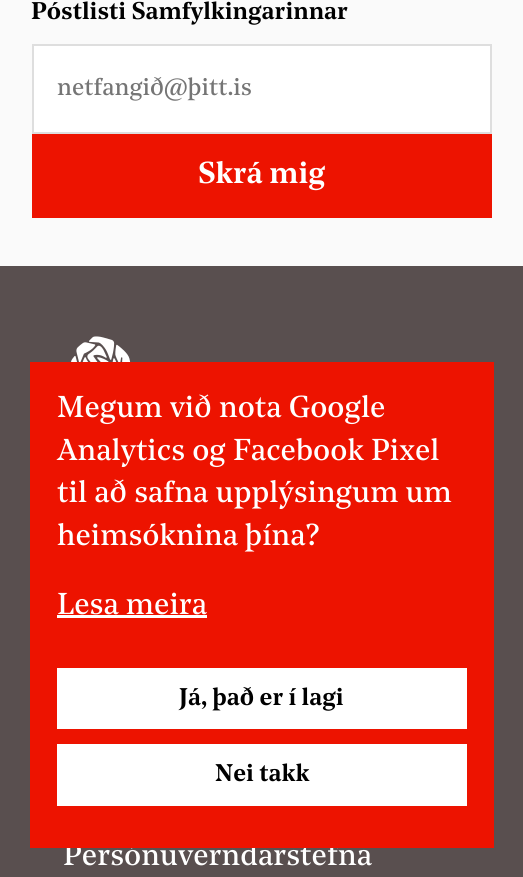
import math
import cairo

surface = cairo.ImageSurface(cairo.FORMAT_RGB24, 523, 877)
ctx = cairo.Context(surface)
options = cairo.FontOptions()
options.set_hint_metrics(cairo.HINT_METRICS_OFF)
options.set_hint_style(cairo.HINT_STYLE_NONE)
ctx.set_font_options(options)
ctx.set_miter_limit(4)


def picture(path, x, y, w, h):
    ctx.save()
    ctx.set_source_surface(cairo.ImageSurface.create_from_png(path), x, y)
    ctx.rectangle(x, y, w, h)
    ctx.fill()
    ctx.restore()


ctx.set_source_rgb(0.349, 0.31, 0.31)
ctx.paint()
ctx.set_source_rgb(0.98, 0.98, 0.98)
ctx.rectangle(0, 0, 523, 266)
ctx.fill()
ctx.select_font_face("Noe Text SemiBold")
ctx.set_font_size(24)
ctx.set_source_rgb(0, 0, 0)
ctx.move_to(31, 19)
ctx.show_text("Póstlisti Samfylkingarinnar")
ctx.set_source_rgb(1, 1, 1)
ctx.rectangle(33, 45, 458, 88)
ctx.fill_preserve()
ctx.set_source_rgb(0.871, 0.871, 0.871)
ctx.stroke()
ctx.select_font_face("Noe Text")
ctx.set_source_rgb(0.459, 0.459, 0.459)
ctx.move_to(57, 95)
ctx.show_text("netfangið@þitt.is")
ctx.set_source_rgb(0.929, 0.078, 0)
ctx.rectangle(32, 134, 460, 84)
ctx.fill()
ctx.select_font_face("Noe Text SemiBold")
ctx.set_font_size(30)
ctx.set_source_rgb(1, 1, 1)
ctx.move_to(198, 183)
ctx.show_text("Skrá mig")
picture("img1.png", 71, 336, 60, 26)
ctx.select_font_face("Noe Text")
ctx.move_to(63, 865)
ctx.show_text("Persónuverndarstefna")
ctx.set_source_rgb(0.929, 0.078, 0)
ctx.rectangle(30, 362, 464, 486)
ctx.fill()
ctx.set_source_rgb(1, 1, 1)
ctx.move_to(57, 417)
ctx.show_text("Megum við nota Google")
ctx.move_to(57, 460)
ctx.show_text("Analytics og Facebook Pixel")
ctx.move_to(57, 502)
ctx.show_text("til að safna upplýsingum um")
ctx.move_to(57, 545)
ctx.show_text("heimsóknina þína?")
ctx.move_to(57, 614)
ctx.show_text("Lesa meira")
ctx.rectangle(57, 615, 150, 3)
ctx.fill()
ctx.rectangle(57, 668, 410, 61)
ctx.fill()
ctx.select_font_face("Noe Text SemiBold")
ctx.set_font_size(24)
ctx.set_source_rgb(0, 0, 0)
ctx.move_to(179, 705)
ctx.show_text("Já, það er í lagi")
ctx.set_source_rgb(1, 1, 1)
ctx.rectangle(57, 744, 410, 62)
ctx.fill()
ctx.set_source_rgb(0, 0, 0)
ctx.move_to(215, 781)
ctx.show_text("Nei takk")
surface.write_to_png("page.png")
